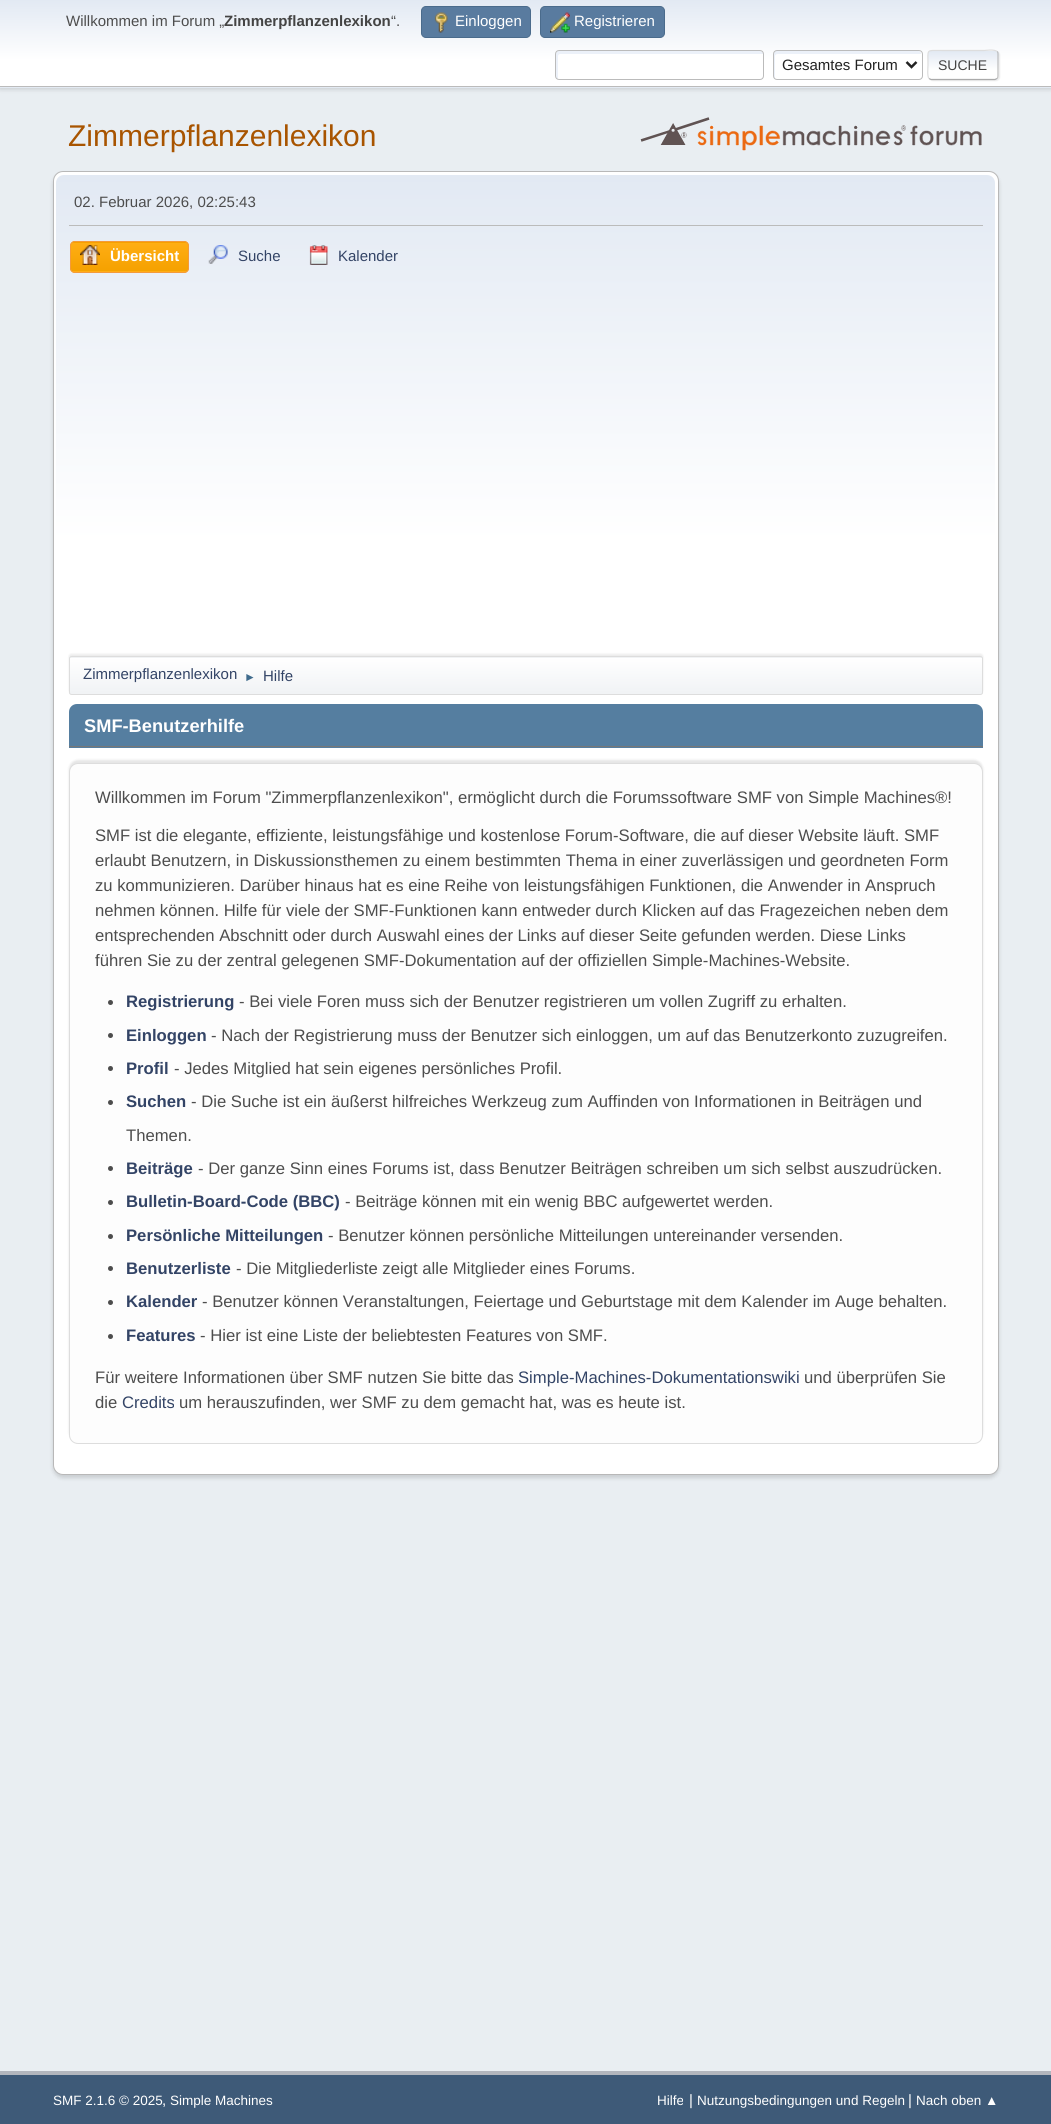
import math
import cairo

surface = cairo.ImageSurface(cairo.FORMAT_RGB24, 1051, 2124)
ctx = cairo.Context(surface)
options = cairo.FontOptions()
options.set_hint_metrics(cairo.HINT_METRICS_OFF)
options.set_hint_style(cairo.HINT_STYLE_NONE)
ctx.set_font_options(options)
ctx.set_miter_limit(4)


def round_rect(x, y, w, h, r):
    ctx.new_sub_path()
    for i, (u, v) in enumerate([(x + w - r, y + h - r), (x + r, y + h - r), (x + r, y + r), (x + w - r, y + r)]):
        ctx.arc(u, v, r, i * math.pi / 2, (i + 1) * math.pi / 2)
    ctx.close_path()


def shadow(x, y, w, h, r, blur, alpha):
    ctx.push_group_with_content(cairo.CONTENT_ALPHA)
    ctx.set_operator(cairo.OPERATOR_SOURCE)
    for i in range(15, -16, -2):
        e = blur * i / 6
        if min(w, h) + 2 * e > 0:
            ctx.set_source_rgba(0, 0, 0, alpha * math.erfc((i - 1) / 8.5) / 2)
            round_rect(x - e, y - e, w + 2 * e, h + 2 * e, max(0, min(r + e + blur * .6, min(w, h) / 2 + e)))
            ctx.fill()
    ctx.mask(ctx.pop_group())


def picture(path, x, y, w, h):
    ctx.save()
    ctx.set_source_surface(cairo.ImageSurface.create_from_png(path), x, y)
    ctx.rectangle(x, y, w, h)
    ctx.fill()
    ctx.restore()


ctx.set_source_rgb(0.914, 0.933, 0.949)
ctx.paint()
ctx.set_source_rgb(0, 0, 0)
shadow(0, 1, 1051, 88, 0, 2.5, 0.16)
gradient = cairo.LinearGradient(526, 0, 526, 86)
gradient.add_color_stop_rgba(0, 0.886, 0.914, 0.953, 1)
gradient.add_color_stop_rgba(0.7, 1, 1, 1, 1)
ctx.set_source(gradient)
ctx.rectangle(0, 0, 1051, 86)
ctx.fill()
gradient = cairo.LinearGradient(526, 86, 526, 173)
gradient.add_color_stop_rgba(0, 0.886, 0.914, 0.953, 1)
gradient.add_color_stop_rgba(0.7, 1, 1, 1, 1)
ctx.set_source(gradient)
ctx.rectangle(0, 87, 1051, 1)
ctx.fill()
ctx.set_source_rgb(0.733, 0.733, 0.733)
ctx.rectangle(0, 86, 1051, 1)
ctx.fill()
ctx.select_font_face("Liberation Sans")
ctx.set_font_size(15)
ctx.set_source_rgb(0.302, 0.302, 0.302)
ctx.move_to(66, 26)
ctx.show_text("Willkommen im Forum „")
ctx.select_font_face("Liberation Sans", cairo.FONT_SLANT_NORMAL, cairo.FONT_WEIGHT_BOLD)
ctx.set_source_rgb(0.267, 0.267, 0.267)
ctx.move_to(224, 26)
ctx.show_text("Zimmerpflanzenlexikon")
ctx.select_font_face("Liberation Sans")
ctx.set_source_rgb(0.302, 0.302, 0.302)
ctx.move_to(391, 26)
ctx.show_text("“.")
ctx.set_source_rgb(0.349, 0.482, 0.624)
round_rect(421.5, 6.5, 109, 31, 4.5)
ctx.fill_preserve()
ctx.set_source_rgb(0.29, 0.42, 0.549)
ctx.set_line_width(1)
ctx.stroke()
picture("img1.png", 434, 12, 14, 21)
ctx.set_source_rgb(1, 1, 1)
ctx.move_to(455, 26)
ctx.show_text("Einloggen")
ctx.set_source_rgb(0.349, 0.482, 0.624)
round_rect(540.5, 6.5, 124, 31, 4.5)
ctx.fill_preserve()
ctx.set_source_rgb(0.29, 0.42, 0.549)
ctx.stroke()
picture("img2.png", 550, 12, 20, 21)
ctx.set_source_rgb(1, 1, 1)
ctx.move_to(574, 26)
ctx.show_text("Registrieren")
round_rect(555, 50, 209, 30, 4)
ctx.fill()
ctx.set_source_rgb(0.925, 0.945, 0.973)
ctx.new_path()
ctx.move_to(560, 54)
ctx.line_to(761, 54)
ctx.line_to(763, 54)
ctx.curve_to(763, 52, 762, 51, 760, 51)
ctx.line_to(558, 51)
ctx.curve_to(557, 51, 556, 52, 556, 54)
ctx.line_to(556, 76)
ctx.curve_to(556, 78, 557, 79, 558, 79)
ctx.line_to(558, 56)
ctx.curve_to(558, 55, 559, 54, 560, 54)
ctx.close_path()
ctx.fill()
round_rect(555.5, 50.5, 208, 29, 3.5)
ctx.set_source_rgb(0.733, 0.733, 0.733)
ctx.stroke()
ctx.set_source_rgb(1, 1, 1)
round_rect(773, 50, 150, 30, 4)
ctx.fill()
ctx.set_source_rgb(0.925, 0.945, 0.973)
ctx.new_path()
ctx.move_to(778, 54)
ctx.line_to(921, 54)
ctx.curve_to(921, 52, 920, 51, 918, 51)
ctx.line_to(776, 51)
ctx.curve_to(775, 51, 774, 52, 774, 54)
ctx.line_to(774, 76)
ctx.curve_to(774, 77, 774, 78, 775, 79)
ctx.line_to(775, 56)
ctx.curve_to(775, 55, 776, 54, 778, 54)
ctx.close_path()
ctx.fill()
round_rect(773.5, 50.5, 149, 29, 3.5)
ctx.set_source_rgb(0.733, 0.733, 0.733)
ctx.stroke()
ctx.new_path()
ctx.move_to(906.5, 62)
ctx.line_to(911.5, 67)
ctx.line_to(916.5, 62)
ctx.set_source_rgb(0.133, 0.133, 0.133)
ctx.set_line_width(2.5)
ctx.stroke()
ctx.move_to(782, 70)
ctx.show_text("Gesamtes Forum")
ctx.set_source_rgb(0.867, 0.867, 0.867)
shadow(929, 51, 71, 30, 4, 0.5, 0.57)
ctx.set_source_rgb(1, 1, 1)
round_rect(928, 50, 71, 30, 4)
ctx.fill()
ctx.save()
round_rect(928, 50, 71, 30, 4)
ctx.clip()
gradient = cairo.LinearGradient(963, 51, 963, 79)
gradient.add_color_stop_rgba(0, 0.886, 0.914, 0.953, 1)
gradient.add_color_stop_rgba(0.7, 1, 1, 1, 1)
ctx.set_source(gradient)
ctx.rectangle(928, 51, 71, 28)
ctx.fill()
gradient = cairo.LinearGradient(963, 79, 963, 106)
gradient.add_color_stop_rgba(0, 0.886, 0.914, 0.953, 1)
gradient.add_color_stop_rgba(0.7, 1, 1, 1, 1)
ctx.set_source(gradient)
ctx.rectangle(928, 79, 71, 1)
ctx.fill()
ctx.restore()
ctx.new_path()
ctx.move_to(997, 51.5)
ctx.curve_to(998, 52, 998, 53, 998, 54)
ctx.line_to(998, 76)
ctx.curve_to(998, 77, 998, 78, 997, 78.5)
ctx.set_source_rgb(0.733, 0.733, 0.733)
ctx.set_line_width(1.2)
ctx.stroke()
ctx.new_path()
ctx.move_to(997, 78.5)
ctx.line_to(995, 79.5)
ctx.line_to(931, 79.5)
ctx.line_to(929, 78.5)
ctx.set_source_rgb(0.667, 0.667, 0.667)
ctx.stroke()
ctx.new_path()
ctx.move_to(929, 78.5)
ctx.curve_to(927, 76.5, 928, 67.5, 928, 65)
ctx.curve_to(928, 48.5, 925.5, 50.5, 942, 50.5)
ctx.line_to(984.5, 50.5)
ctx.curve_to(984.5, 50.5, 994.5, 49, 997, 51.5)
ctx.set_source_rgb(0.867, 0.867, 0.867)
ctx.stroke()
ctx.set_font_size(14)
ctx.set_source_rgb(0.267, 0.267, 0.267)
ctx.move_to(938, 70)
ctx.show_text("SUCHE")
ctx.set_font_size(30)
ctx.set_source_rgb(0.659, 0.329, 0)
ctx.move_to(68, 146)
ctx.show_text("Zimmerpflanzenlexikon")
picture("img3.png", 640, 117, 342, 34)
ctx.set_source_rgb(0, 0, 0)
shadow(53, 174, 946, 1304, 10, 2, 0.14)
ctx.set_source_rgb(1, 1, 1)
round_rect(53.5, 171.5, 945, 1303, 9.5)
ctx.fill_preserve()
ctx.set_source_rgb(0.722, 0.722, 0.722)
ctx.set_line_width(1)
ctx.stroke()
gradient = cairo.LinearGradient(526, 175, 526, 698)
gradient.add_color_stop_rgba(0, 0.886, 0.914, 0.953, 1)
gradient.add_color_stop_rgba(0.7, 1, 1, 1, 1)
ctx.set_source(gradient)
ctx.new_path()
ctx.move_to(64, 175)
ctx.line_to(987, 175)
ctx.curve_to(991.5, 175, 995, 178.5, 995, 183)
ctx.line_to(995, 698)
ctx.line_to(56, 698)
ctx.line_to(56, 183)
ctx.curve_to(56, 178.5, 59.5, 175, 64, 175)
ctx.close_path()
ctx.fill()
ctx.set_source_rgb(0.733, 0.733, 0.733)
ctx.rectangle(69, 225, 914, 1)
ctx.fill()
ctx.set_font_size(15)
ctx.set_source_rgb(0.302, 0.302, 0.302)
ctx.move_to(74, 207)
ctx.show_text("02. Februar 2026, 02:25:43")
ctx.save()
round_rect(70, 241, 119, 32, 5)
ctx.clip()
gradient = cairo.LinearGradient(129, 214, 129, 243)
gradient.add_color_stop_rgba(0, 1, 0.682, 0.078, 1)
gradient.add_color_stop_rgba(1, 0.961, 0.631, 0, 1)
ctx.set_source(gradient)
ctx.rectangle(70, 241, 119, 2)
ctx.fill()
gradient = cairo.LinearGradient(129, 243, 129, 271)
gradient.add_color_stop_rgba(0, 1, 0.682, 0.078, 1)
gradient.add_color_stop_rgba(1, 0.961, 0.631, 0, 1)
ctx.set_source(gradient)
ctx.rectangle(70, 243, 119, 28)
ctx.fill()
gradient = cairo.LinearGradient(129, 271, 129, 300)
gradient.add_color_stop_rgba(0, 1, 0.682, 0.078, 1)
gradient.add_color_stop_rgba(1, 0.961, 0.631, 0, 1)
ctx.set_source(gradient)
ctx.rectangle(70, 271, 119, 2)
ctx.fill()
ctx.restore()
round_rect(70.5, 241.5, 118, 31, 4.5)
ctx.set_source_rgb(0.957, 0.604, 0.227)
ctx.stroke()
picture("img4.png", 80, 245, 20, 20)
ctx.select_font_face("Liberation Sans", cairo.FONT_SLANT_NORMAL, cairo.FONT_WEIGHT_BOLD)
ctx.set_source_rgb(1, 1, 1)
ctx.move_to(110, 261)
ctx.show_text("Übersicht")
picture("img5.png", 208, 245, 20, 19)
ctx.select_font_face("Liberation Sans")
ctx.set_source_rgb(0.2, 0.267, 0.4)
ctx.move_to(238, 261)
ctx.show_text("Suche")
picture("img6.png", 309, 245, 19, 20)
ctx.move_to(338, 261)
ctx.show_text("Kalender")
ctx.set_source_rgb(0, 0, 0)
shadow(69, 654, 914, 39, 2.5, 1, 0.08)
ctx.save()
round_rect(69, 656, 914, 39, 2.5)
ctx.clip()
gradient = cairo.LinearGradient(526, 621, 526, 658)
gradient.add_color_stop_rgba(0, 1, 1, 1, 1)
gradient.add_color_stop_rgba(0.95, 0.945, 0.953, 0.961, 1)
ctx.set_source(gradient)
ctx.rectangle(69, 656, 914, 2)
ctx.fill()
ctx.restore()
gradient = cairo.LinearGradient(526, 658, 526, 694)
gradient.add_color_stop_rgba(0, 1, 1, 1, 1)
gradient.add_color_stop_rgba(0.95, 0.945, 0.953, 0.961, 1)
ctx.set_source(gradient)
ctx.rectangle(69, 658, 914, 36)
ctx.fill()
round_rect(69.5, 656.5, 913, 38, 2)
ctx.set_source_rgb(0.867, 0.867, 0.867)
ctx.stroke()
ctx.set_source_rgb(0.2, 0.267, 0.4)
ctx.move_to(83, 679)
ctx.show_text("Zimmerpflanzenlexikon")
ctx.set_font_size(12)
ctx.set_source_rgb(0.247, 0.42, 0.549)
ctx.move_to(244, 681)
ctx.show_text("►")
ctx.set_font_size(15)
ctx.set_source_rgb(0.2, 0.267, 0.4)
ctx.move_to(263, 681)
ctx.show_text("Hilfe")
ctx.set_source_rgb(0.333, 0.494, 0.627)
ctx.new_path()
ctx.move_to(77, 704)
ctx.line_to(975, 704)
ctx.curve_to(979.5, 704, 983, 707.5, 983, 712)
ctx.line_to(983, 748)
ctx.line_to(69, 748)
ctx.line_to(69, 712)
ctx.curve_to(69, 707.5, 72.5, 704, 77, 704)
ctx.close_path()
ctx.fill()
ctx.set_source_rgb(0.467, 0.467, 0.467)
ctx.rectangle(69, 746, 914, 1)
ctx.fill()
ctx.select_font_face("Liberation Sans", cairo.FONT_SLANT_NORMAL, cairo.FONT_WEIGHT_BOLD)
ctx.set_font_size(18.25)
ctx.set_source_rgb(1, 1, 1)
ctx.move_to(84, 732)
ctx.show_text("SMF-Benutzerhilfe")
ctx.set_source_rgb(0, 0, 0)
shadow(69, 760, 914, 681, 9, 1, 0.1)
ctx.set_source_rgb(0.992, 0.992, 0.992)
round_rect(69.5, 763.5, 913, 680, 8.5)
ctx.fill_preserve()
ctx.set_source_rgb(0.867, 0.867, 0.867)
ctx.stroke()
ctx.select_font_face("Liberation Sans")
ctx.set_font_size(16.67)
ctx.set_source_rgb(0.302, 0.302, 0.302)
ctx.move_to(95, 803)
ctx.show_text("Willkommen im Forum \"Zimmerpflanzenlexikon\", ermöglicht durch die Forumssoftware SMF von Simple Machines®!")
ctx.move_to(95, 841)
ctx.show_text("SMF ist die elegante, effiziente, leistungsfähige und kostenlose Forum-Software, die auf dieser Website läuft. SMF")
ctx.move_to(95, 866)
ctx.show_text("erlaubt Benutzern, in Diskussionsthemen zu einem bestimmten Thema in einer zuverlässigen und geordneten Form")
ctx.move_to(95, 891)
ctx.show_text("zu kommunizieren. Darüber hinaus hat es eine Reihe von leistungsfähigen Funktionen, die Anwender in Anspruch")
ctx.move_to(95, 916)
ctx.show_text("nehmen können. Hilfe für viele der SMF-Funktionen kann entweder durch Klicken auf das Fragezeichen neben dem")
ctx.move_to(95, 941)
ctx.show_text("entsprechenden Abschnitt oder durch Auswahl eines der Links auf dieser Seite gefunden werden. Diese Links")
ctx.move_to(95, 966)
ctx.show_text("führen Sie zu der zentral gelegenen SMF-Dokumentation auf der offiziellen Simple-Machines-Website.")
ctx.new_path()
ctx.arc(110.5, 1002.5, 2.5, 0, 2 * math.pi)
ctx.fill()
ctx.select_font_face("Liberation Sans", cairo.FONT_SLANT_NORMAL, cairo.FONT_WEIGHT_BOLD)
ctx.set_source_rgb(0.2, 0.267, 0.4)
ctx.move_to(126, 1007)
ctx.show_text("Registrierung")
ctx.select_font_face("Liberation Sans")
ctx.set_source_rgb(0.302, 0.302, 0.302)
ctx.move_to(239, 1007)
ctx.show_text("- Bei viele Foren muss sich der Benutzer registrieren um vollen Zugriff zu erhalten.")
ctx.new_path()
ctx.arc(110.5, 1035.5, 2.5, 0, 2 * math.pi)
ctx.fill()
ctx.select_font_face("Liberation Sans", cairo.FONT_SLANT_NORMAL, cairo.FONT_WEIGHT_BOLD)
ctx.set_source_rgb(0.2, 0.267, 0.4)
ctx.move_to(126, 1041)
ctx.show_text("Einloggen")
ctx.select_font_face("Liberation Sans")
ctx.set_source_rgb(0.302, 0.302, 0.302)
ctx.move_to(211, 1041)
ctx.show_text("- Nach der Registrierung muss der Benutzer sich einloggen, um auf das Benutzerkonto zuzugreifen.")
ctx.new_path()
ctx.arc(110.5, 1068.5, 2.5, 0, 2 * math.pi)
ctx.fill()
ctx.select_font_face("Liberation Sans", cairo.FONT_SLANT_NORMAL, cairo.FONT_WEIGHT_BOLD)
ctx.set_source_rgb(0.2, 0.267, 0.4)
ctx.move_to(126, 1074)
ctx.show_text("Profil")
ctx.select_font_face("Liberation Sans")
ctx.set_source_rgb(0.302, 0.302, 0.302)
ctx.move_to(174, 1074)
ctx.show_text("- Jedes Mitglied hat sein eigenes persönliches Profil.")
ctx.new_path()
ctx.arc(110.5, 1102.5, 2.5, 0, 2 * math.pi)
ctx.fill()
ctx.select_font_face("Liberation Sans", cairo.FONT_SLANT_NORMAL, cairo.FONT_WEIGHT_BOLD)
ctx.set_source_rgb(0.2, 0.267, 0.4)
ctx.move_to(126, 1107)
ctx.show_text("Suchen")
ctx.select_font_face("Liberation Sans")
ctx.set_source_rgb(0.302, 0.302, 0.302)
ctx.move_to(191, 1107)
ctx.show_text("- Die Suche ist ein äußerst hilfreiches Werkzeug zum Auffinden von Informationen in Beiträgen und")
ctx.move_to(126, 1141)
ctx.show_text("Themen.")
ctx.new_path()
ctx.arc(110.5, 1168.5, 2.5, 0, 2 * math.pi)
ctx.fill()
ctx.select_font_face("Liberation Sans", cairo.FONT_SLANT_NORMAL, cairo.FONT_WEIGHT_BOLD)
ctx.set_source_rgb(0.2, 0.267, 0.4)
ctx.move_to(126, 1174)
ctx.show_text("Beiträge")
ctx.select_font_face("Liberation Sans")
ctx.set_source_rgb(0.302, 0.302, 0.302)
ctx.move_to(198, 1174)
ctx.show_text("- Der ganze Sinn eines Forums ist, dass Benutzer Beiträgen schreiben um sich selbst auszudrücken.")
ctx.new_path()
ctx.arc(110.5, 1202.5, 2.5, 0, 2 * math.pi)
ctx.fill()
ctx.select_font_face("Liberation Sans", cairo.FONT_SLANT_NORMAL, cairo.FONT_WEIGHT_BOLD)
ctx.set_source_rgb(0.2, 0.267, 0.4)
ctx.move_to(126, 1207)
ctx.show_text("Bulletin-Board-Code (BBC)")
ctx.select_font_face("Liberation Sans")
ctx.set_source_rgb(0.302, 0.302, 0.302)
ctx.move_to(345, 1207)
ctx.show_text("- Beiträge können mit ein wenig BBC aufgewertet werden.")
ctx.new_path()
ctx.arc(110.5, 1236.5, 2.5, 0, 2 * math.pi)
ctx.fill()
ctx.select_font_face("Liberation Sans", cairo.FONT_SLANT_NORMAL, cairo.FONT_WEIGHT_BOLD)
ctx.set_source_rgb(0.2, 0.267, 0.4)
ctx.move_to(126, 1241)
ctx.show_text("Persönliche Mitteilungen")
ctx.select_font_face("Liberation Sans")
ctx.set_source_rgb(0.302, 0.302, 0.302)
ctx.move_to(328, 1241)
ctx.show_text("- Benutzer können persönliche Mitteilungen untereinander versenden.")
ctx.new_path()
ctx.arc(110.5, 1268.5, 2.5, 0, 2 * math.pi)
ctx.fill()
ctx.select_font_face("Liberation Sans", cairo.FONT_SLANT_NORMAL, cairo.FONT_WEIGHT_BOLD)
ctx.set_source_rgb(0.2, 0.267, 0.4)
ctx.move_to(126, 1274)
ctx.show_text("Benutzerliste")
ctx.select_font_face("Liberation Sans")
ctx.set_source_rgb(0.302, 0.302, 0.302)
ctx.move_to(236, 1274)
ctx.show_text("- Die Mitgliederliste zeigt alle Mitglieder eines Forums.")
ctx.new_path()
ctx.arc(110.5, 1302.5, 2.5, 0, 2 * math.pi)
ctx.fill()
ctx.select_font_face("Liberation Sans", cairo.FONT_SLANT_NORMAL, cairo.FONT_WEIGHT_BOLD)
ctx.set_source_rgb(0.2, 0.267, 0.4)
ctx.move_to(126, 1307)
ctx.show_text("Kalender")
ctx.select_font_face("Liberation Sans")
ctx.set_source_rgb(0.302, 0.302, 0.302)
ctx.move_to(202, 1307)
ctx.show_text("- Benutzer können Veranstaltungen, Feiertage und Geburtstage mit dem Kalender im Auge behalten.")
ctx.new_path()
ctx.arc(110.5, 1336.5, 2.5, 0, 2 * math.pi)
ctx.fill()
ctx.select_font_face("Liberation Sans", cairo.FONT_SLANT_NORMAL, cairo.FONT_WEIGHT_BOLD)
ctx.set_source_rgb(0.2, 0.267, 0.4)
ctx.move_to(126, 1341)
ctx.show_text("Features")
ctx.select_font_face("Liberation Sans")
ctx.set_source_rgb(0.302, 0.302, 0.302)
ctx.move_to(200, 1341)
ctx.show_text("- Hier ist eine Liste der beliebtesten Features von SMF.")
ctx.move_to(95, 1383)
ctx.show_text("Für weitere Informationen über SMF nutzen Sie bitte das")
ctx.set_source_rgb(0.2, 0.267, 0.4)
ctx.move_to(518, 1383)
ctx.show_text("Simple-Machines-Dokumentationswiki")
ctx.set_source_rgb(0.302, 0.302, 0.302)
ctx.move_to(804, 1383)
ctx.show_text("und überprüfen Sie")
ctx.move_to(95, 1408)
ctx.show_text("die")
ctx.set_source_rgb(0.2, 0.267, 0.4)
ctx.move_to(122, 1408)
ctx.show_text("Credits")
ctx.set_source_rgb(0.302, 0.302, 0.302)
ctx.move_to(179, 1408)
ctx.show_text("um herauszufinden, wer SMF zu dem gemacht hat, was es heute ist.")
ctx.set_source_rgb(0.243, 0.353, 0.471)
ctx.rectangle(0, 2075, 1051, 49)
ctx.fill()
ctx.set_source_rgb(0.698, 0.714, 0.741)
ctx.rectangle(0, 2071, 1051, 4)
ctx.fill()
ctx.set_font_size(13.5)
ctx.set_source_rgb(1, 1, 1)
ctx.move_to(53, 2105)
ctx.show_text("SMF 2.1.6 © 2025")
ctx.set_font_size(15)
ctx.move_to(162, 2105)
ctx.show_text(",")
ctx.set_font_size(13.5)
ctx.move_to(170, 2105)
ctx.show_text("Simple Machines")
ctx.move_to(657, 2105)
ctx.show_text("Hilfe")
ctx.set_font_size(15)
ctx.move_to(689, 2105)
ctx.show_text("|")
ctx.set_font_size(13.5)
ctx.move_to(697, 2105)
ctx.show_text("Nutzungsbedingungen und Regeln")
ctx.set_font_size(15)
ctx.move_to(908, 2105)
ctx.show_text("|")
ctx.set_font_size(13.5)
ctx.move_to(916, 2105)
ctx.show_text("Nach oben ▲")
surface.write_to_png("page.png")
